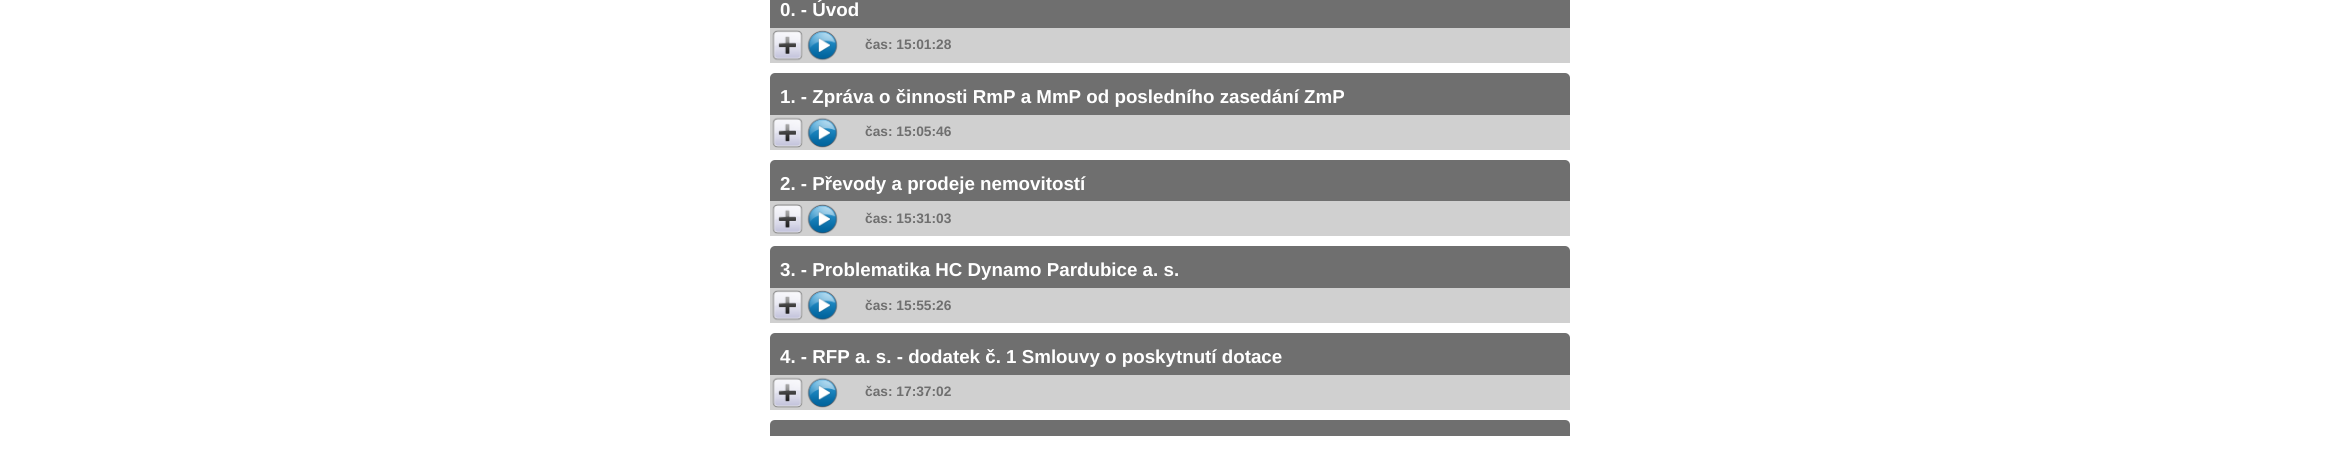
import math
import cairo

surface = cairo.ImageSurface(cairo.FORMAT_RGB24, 2339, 456)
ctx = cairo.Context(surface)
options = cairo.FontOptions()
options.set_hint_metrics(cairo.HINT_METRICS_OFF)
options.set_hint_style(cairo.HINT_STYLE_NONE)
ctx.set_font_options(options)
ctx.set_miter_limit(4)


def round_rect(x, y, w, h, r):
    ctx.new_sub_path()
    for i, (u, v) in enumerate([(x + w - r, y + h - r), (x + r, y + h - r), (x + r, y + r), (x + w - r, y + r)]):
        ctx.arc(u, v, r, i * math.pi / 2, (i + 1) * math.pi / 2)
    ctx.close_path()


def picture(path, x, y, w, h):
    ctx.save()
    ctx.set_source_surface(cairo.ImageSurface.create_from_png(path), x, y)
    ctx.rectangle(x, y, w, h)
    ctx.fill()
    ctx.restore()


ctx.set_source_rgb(1, 1, 1)
ctx.paint()
ctx.set_source_rgb(0.435, 0.435, 0.435)
ctx.rectangle(770, 0, 800, 28)
ctx.fill()
ctx.select_font_face("Liberation Sans", cairo.FONT_SLANT_NORMAL, cairo.FONT_WEIGHT_BOLD)
ctx.set_font_size(18.75)
ctx.set_source_rgb(1, 1, 1)
ctx.move_to(780, 16)
ctx.show_text("0. - Úvod")
ctx.set_source_rgb(0.816, 0.816, 0.816)
ctx.rectangle(770, 28, 800, 35)
ctx.fill()
picture("img1.png", 772, 30, 31, 31)
picture("img2.png", 807, 30, 31, 31)
ctx.set_font_size(13.75)
ctx.set_source_rgb(0.435, 0.435, 0.435)
ctx.move_to(865, 49)
ctx.show_text("čas: 15:01:28")
round_rect(770, 73, 800, 77, 5)
ctx.fill()
ctx.set_font_size(18.75)
ctx.set_source_rgb(1, 1, 1)
ctx.move_to(780, 103)
ctx.show_text("1. - Zpráva o činnosti RmP a MmP od posledního zasedání ZmP")
ctx.set_source_rgb(0.816, 0.816, 0.816)
ctx.rectangle(770, 115, 800, 35)
ctx.fill()
picture("img3.png", 772, 117, 31, 31)
picture("img4.png", 807, 117, 31, 31)
ctx.set_font_size(13.75)
ctx.set_source_rgb(0.435, 0.435, 0.435)
ctx.move_to(865, 136)
ctx.show_text("čas: 15:05:46")
round_rect(770, 160, 800, 76, 5)
ctx.fill()
ctx.set_font_size(18.75)
ctx.set_source_rgb(1, 1, 1)
ctx.move_to(780, 190)
ctx.show_text("2. - Převody a prodeje nemovitostí")
ctx.set_source_rgb(0.816, 0.816, 0.816)
ctx.rectangle(770, 201, 800, 35)
ctx.fill()
picture("img5.png", 772, 204, 31, 30)
picture("img6.png", 807, 204, 31, 30)
ctx.set_font_size(13.75)
ctx.set_source_rgb(0.435, 0.435, 0.435)
ctx.move_to(865, 223)
ctx.show_text("čas: 15:31:03")
round_rect(770, 246, 800, 77, 5)
ctx.fill()
ctx.set_font_size(18.75)
ctx.set_source_rgb(1, 1, 1)
ctx.move_to(780, 276)
ctx.show_text("3. - Problematika HC Dynamo Pardubice a. s.")
ctx.set_source_rgb(0.816, 0.816, 0.816)
ctx.rectangle(770, 288, 800, 35)
ctx.fill()
picture("img1.png", 772, 290, 31, 31)
picture("img2.png", 807, 290, 31, 31)
ctx.set_font_size(13.75)
ctx.set_source_rgb(0.435, 0.435, 0.435)
ctx.move_to(865, 310)
ctx.show_text("čas: 15:55:26")
round_rect(770, 333, 800, 77, 5)
ctx.fill()
ctx.set_font_size(18.75)
ctx.set_source_rgb(1, 1, 1)
ctx.move_to(780, 363)
ctx.show_text("4. - RFP a. s. - dodatek č. 1 Smlouvy o poskytnutí dotace")
ctx.set_source_rgb(0.816, 0.816, 0.816)
ctx.rectangle(770, 375, 800, 35)
ctx.fill()
picture("img3.png", 772, 377, 31, 31)
picture("img4.png", 807, 377, 31, 31)
ctx.set_font_size(13.75)
ctx.set_source_rgb(0.435, 0.435, 0.435)
ctx.move_to(865, 396)
ctx.show_text("čas: 17:37:02")
ctx.new_path()
ctx.move_to(775, 420)
ctx.line_to(1565, 420)
ctx.curve_to(1568, 420, 1570, 422, 1570, 425)
ctx.line_to(1570, 436)
ctx.line_to(770, 436)
ctx.line_to(770, 425)
ctx.curve_to(770, 422, 772, 420, 775, 420)
ctx.close_path()
ctx.fill()
surface.write_to_png("page.png")
